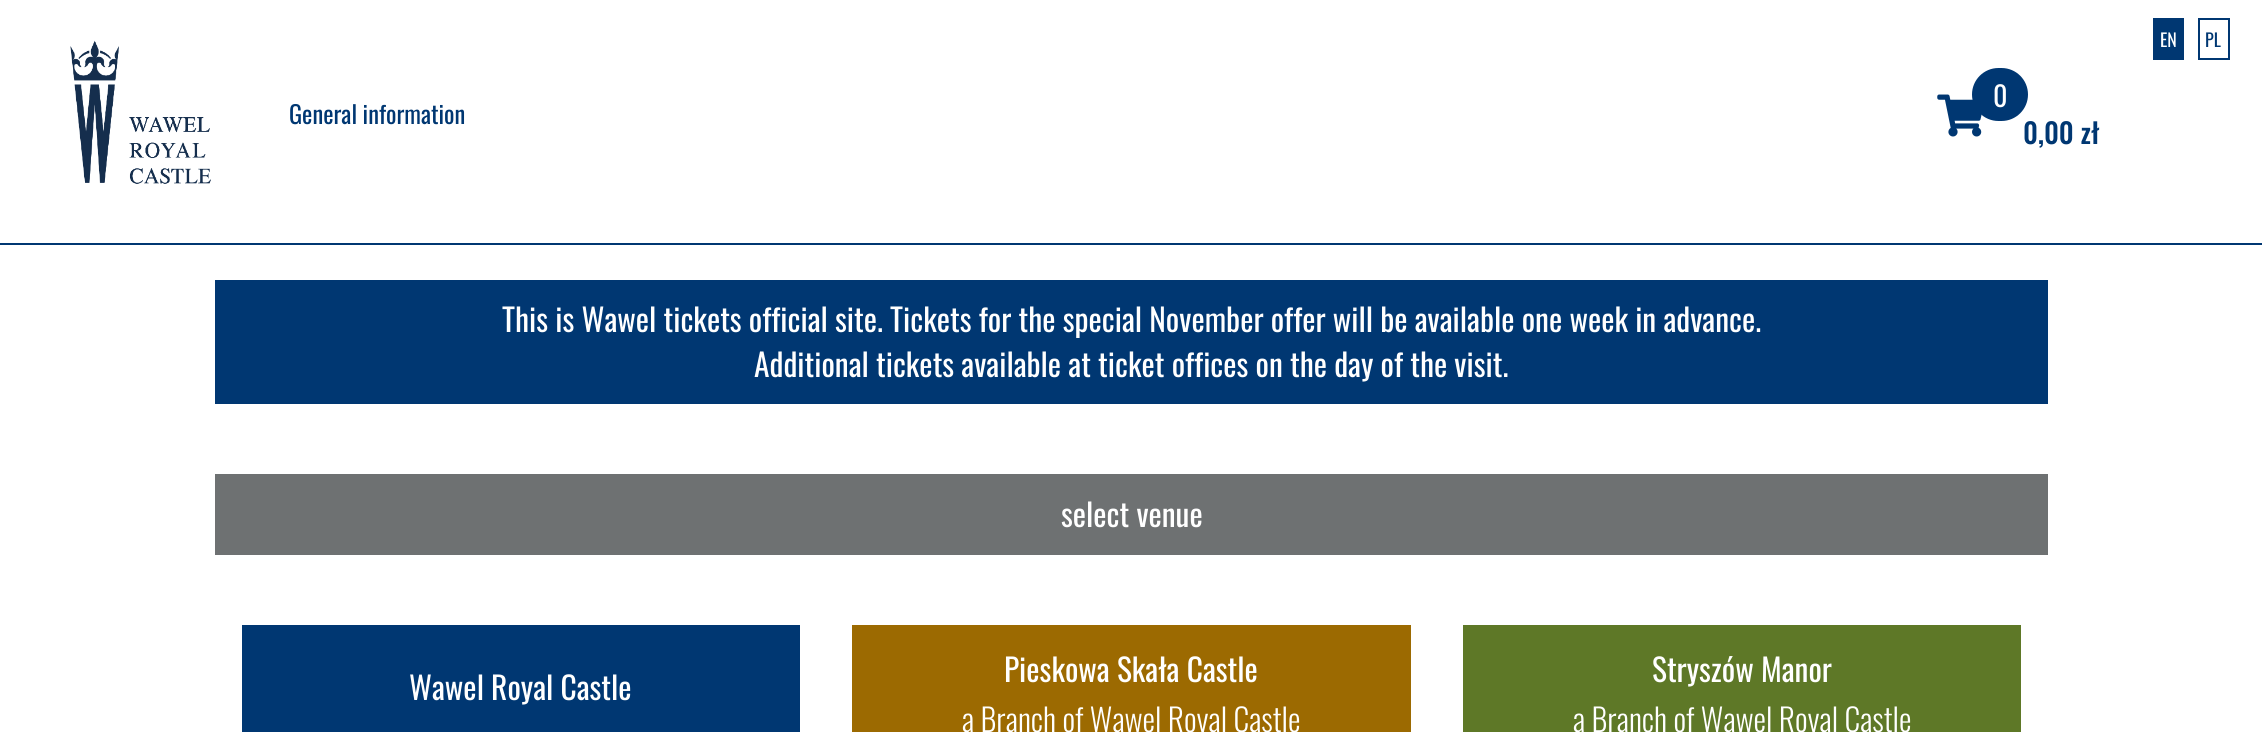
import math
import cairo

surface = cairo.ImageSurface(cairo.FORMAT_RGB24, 2262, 732)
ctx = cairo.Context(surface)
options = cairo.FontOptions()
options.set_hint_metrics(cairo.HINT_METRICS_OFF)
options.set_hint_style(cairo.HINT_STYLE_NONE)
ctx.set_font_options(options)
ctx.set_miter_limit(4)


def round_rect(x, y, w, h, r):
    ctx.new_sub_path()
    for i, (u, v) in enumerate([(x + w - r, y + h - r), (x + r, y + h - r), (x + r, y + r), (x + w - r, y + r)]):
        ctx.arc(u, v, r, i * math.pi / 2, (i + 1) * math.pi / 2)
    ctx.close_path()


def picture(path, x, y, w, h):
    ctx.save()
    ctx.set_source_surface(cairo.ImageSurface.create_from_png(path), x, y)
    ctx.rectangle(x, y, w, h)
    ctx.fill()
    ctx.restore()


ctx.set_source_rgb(1, 1, 1)
ctx.paint()
ctx.set_source_rgb(0, 0.216, 0.447)
ctx.rectangle(0, 243, 2262, 2)
ctx.fill()
picture("img1.png", 70, 40, 141, 144)
ctx.select_font_face("Oswald")
ctx.set_font_size(24.5)
ctx.move_to(289, 124)
ctx.show_text("General information")
picture("img2.png", 1937, 94, 45, 43)
round_rect(1972, 68, 56, 53, 26.5)
ctx.fill()
ctx.set_font_size(28)
ctx.set_source_rgb(1, 1, 1)
ctx.move_to(1993, 107)
ctx.show_text("0")
ctx.select_font_face("Oswald Medium")
ctx.set_source_rgb(0, 0.216, 0.447)
ctx.move_to(2023, 144)
ctx.show_text("0,00 zł")
ctx.rectangle(2153, 18, 31, 42)
ctx.fill()
ctx.select_font_face("Oswald")
ctx.set_font_size(18)
ctx.set_source_rgb(1, 1, 1)
ctx.move_to(2160, 47)
ctx.show_text("EN")
ctx.rectangle(2199, 19, 30, 40)
ctx.set_source_rgb(0, 0.216, 0.447)
ctx.stroke()
ctx.move_to(2205, 47)
ctx.show_text("PL")
ctx.rectangle(215, 280, 1833, 124)
ctx.fill()
ctx.set_font_size(31.5)
ctx.set_source_rgb(1, 1, 1)
ctx.move_to(502, 332)
ctx.show_text("This is Wawel tickets official site. Tickets for the special November offer will be available one week in advance.")
ctx.move_to(754, 377)
ctx.show_text("Additional tickets available at ticket offices on the day of the visit.")
ctx.set_source_rgb(0.431, 0.443, 0.447)
ctx.rectangle(215, 474, 1833, 81)
ctx.fill()
ctx.set_source_rgb(1, 1, 1)
ctx.move_to(1061, 527)
ctx.show_text("select venue")
ctx.set_source_rgb(0, 0.216, 0.447)
ctx.rectangle(242, 625, 558, 107)
ctx.fill()
ctx.set_source_rgb(1, 1, 1)
ctx.move_to(409, 700)
ctx.show_text("Wawel Royal Castle")
ctx.set_source_rgb(0.612, 0.416, 0.004)
ctx.rectangle(852, 625, 559, 107)
ctx.fill()
ctx.set_source_rgb(1, 1, 1)
ctx.move_to(1004, 682)
ctx.show_text("Pieskowa Skała Castle")
ctx.select_font_face("Oswald Light")
ctx.move_to(962, 732)
ctx.show_text("a Branch of Wawel Royal Castle")
ctx.set_source_rgb(0.369, 0.471, 0.153)
ctx.rectangle(1463, 625, 558, 107)
ctx.fill()
ctx.select_font_face("Oswald")
ctx.set_source_rgb(1, 1, 1)
ctx.move_to(1652, 682)
ctx.show_text("Stryszów Manor")
ctx.select_font_face("Oswald Light")
ctx.move_to(1573, 732)
ctx.show_text("a Branch of Wawel Royal Castle")
surface.write_to_png("page.png")
